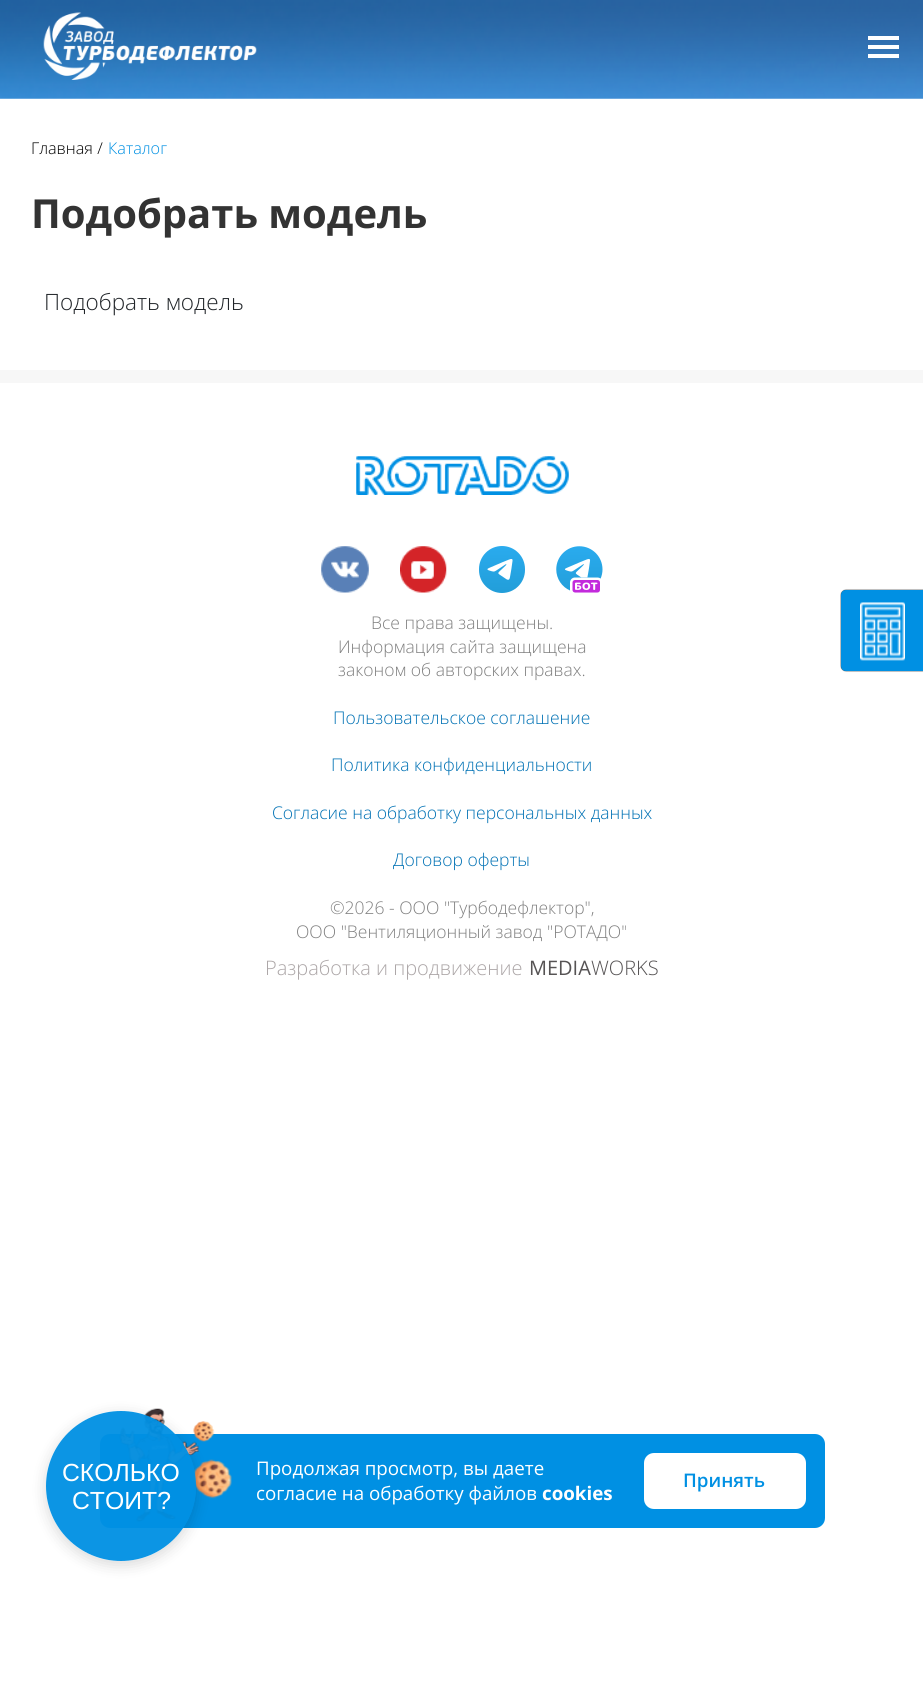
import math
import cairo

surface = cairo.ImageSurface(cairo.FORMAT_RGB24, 923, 1686)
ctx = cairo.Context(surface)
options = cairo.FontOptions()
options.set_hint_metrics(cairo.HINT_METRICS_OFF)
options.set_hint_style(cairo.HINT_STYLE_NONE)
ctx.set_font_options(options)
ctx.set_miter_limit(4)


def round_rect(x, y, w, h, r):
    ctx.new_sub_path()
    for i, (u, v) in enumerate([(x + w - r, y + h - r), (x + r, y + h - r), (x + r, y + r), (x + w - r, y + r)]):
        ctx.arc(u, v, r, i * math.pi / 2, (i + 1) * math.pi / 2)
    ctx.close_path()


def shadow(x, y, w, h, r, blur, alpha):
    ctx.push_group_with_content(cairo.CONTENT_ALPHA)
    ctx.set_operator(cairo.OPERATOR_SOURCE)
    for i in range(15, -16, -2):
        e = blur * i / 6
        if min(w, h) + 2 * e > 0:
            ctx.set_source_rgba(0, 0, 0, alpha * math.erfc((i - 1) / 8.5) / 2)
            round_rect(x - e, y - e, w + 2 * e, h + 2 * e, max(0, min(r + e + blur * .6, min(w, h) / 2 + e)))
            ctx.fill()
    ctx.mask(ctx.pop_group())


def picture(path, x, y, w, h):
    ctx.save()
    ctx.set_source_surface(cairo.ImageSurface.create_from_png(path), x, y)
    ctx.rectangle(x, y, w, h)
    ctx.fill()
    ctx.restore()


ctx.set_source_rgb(1, 1, 1)
ctx.paint()
picture("img1.png", 0, 0, 923, 99)
picture("img2.png", 43, 12, 214, 68)
ctx.set_source_rgb(1, 1, 1)
ctx.rectangle(868, 36, 31, 4)
ctx.fill()
ctx.rectangle(868, 45, 31, 4)
ctx.fill()
ctx.rectangle(868, 54, 31, 4)
ctx.fill()
ctx.select_font_face("Open Sans Light")
ctx.set_font_size(16.25)
ctx.set_source_rgb(0, 0, 0)
ctx.move_to(31, 154)
ctx.show_text("Главная /")
ctx.set_source_rgb(0, 0.565, 0.89)
ctx.move_to(108, 154)
ctx.show_text("Каталог")
ctx.select_font_face("Open Sans", cairo.FONT_SLANT_NORMAL, cairo.FONT_WEIGHT_BOLD)
ctx.set_font_size(40)
ctx.set_source_rgb(0.2, 0.2, 0.2)
ctx.move_to(31, 228)
ctx.show_text("Подобрать модель")
ctx.select_font_face("Open Sans Light")
ctx.set_font_size(22.5)
ctx.set_source_rgb(0.129, 0.145, 0.161)
ctx.move_to(44, 310)
ctx.show_text("Подобрать модель")
ctx.set_source_rgb(0.965, 0.965, 0.965)
ctx.rectangle(0, 370, 923, 13)
ctx.fill()
picture("img3.png", 356, 456, 213, 39)
picture("img4.png", 321, 546, 48, 47)
picture("img5.png", 400, 546, 47, 47)
picture("img6.png", 479, 546, 46, 47)
picture("img7.png", 556, 546, 47, 47)
ctx.set_font_size(17.5)
ctx.set_source_rgb(0.502, 0.502, 0.502)
ctx.move_to(371, 629)
ctx.show_text("Все права защищены.")
ctx.move_to(338, 653)
ctx.show_text("Информация сайта защищена")
ctx.move_to(338, 676)
ctx.show_text("законом об авторских правах.")
ctx.set_source_rgb(0, 0.443, 0.706)
ctx.move_to(333, 724)
ctx.show_text("Пользовательское соглашение")
ctx.move_to(331, 771)
ctx.show_text("Политика конфиденциальности")
ctx.move_to(272, 819)
ctx.show_text("Согласие на обработку персональных данных")
ctx.move_to(393, 866)
ctx.show_text("Договор оферты")
ctx.set_source_rgb(0.502, 0.502, 0.502)
ctx.move_to(330, 914)
ctx.show_text("©2026 - ООО \"Турбодефлектор\",")
ctx.move_to(296, 938)
ctx.show_text("ООО \"Вентиляционный завод \"РОТАДО\"")
ctx.set_font_size(20)
ctx.set_source_rgb(0.675, 0.651, 0.655)
ctx.move_to(265, 975)
ctx.show_text("Разработка и продвижение")
ctx.select_font_face("Open Sans")
ctx.set_source_rgb(0.337, 0.325, 0.329)
ctx.move_to(529, 975)
ctx.show_text("MEDIA")
ctx.select_font_face("Open Sans Light")
ctx.move_to(591, 975)
ctx.show_text("WORKS")
ctx.set_source_rgb(0, 0, 0)
shadow(841, 590, 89, 81, 5, 0.5, 1)
ctx.set_source_rgb(0, 0.565, 0.89)
ctx.new_path()
ctx.move_to(846, 590)
ctx.line_to(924, 590)
ctx.line_to(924, 671)
ctx.line_to(846, 671)
ctx.curve_to(843, 671, 841, 669, 841, 666)
ctx.line_to(841, 595)
ctx.curve_to(841, 592, 843, 590, 846, 590)
ctx.close_path()
ctx.fill()
picture("img8.png", 860, 602, 45, 59)
round_rect(100, 1434, 725, 94, 10)
ctx.fill()
picture("img9.png", 119, 1408, 80, 114)
picture("img10.png", 193, 1421, 22, 21)
picture("img11.png", 193, 1459, 39, 40)
ctx.save()
ctx.set_fill_rule(cairo.FILL_RULE_EVEN_ODD)
ctx.new_path()
ctx.move_to(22, 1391)
ctx.line_to(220, 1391)
ctx.line_to(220, 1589)
ctx.line_to(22, 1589)
ctx.close_path()
ctx.move_to(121, 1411)
ctx.curve_to(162.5, 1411, 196, 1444.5, 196, 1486)
ctx.curve_to(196, 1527.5, 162.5, 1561, 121, 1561)
ctx.curve_to(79.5, 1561, 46, 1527.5, 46, 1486)
ctx.curve_to(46, 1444.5, 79.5, 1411, 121, 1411)
ctx.close_path()
ctx.clip()
ctx.set_source_rgb(0, 0, 0)
shadow(46, 1415, 150, 150, 75, 7.5, 0.15)
ctx.restore()
ctx.set_source_rgba(0, 0.565, 0.89, 0.95)
ctx.arc(121, 1486, 75, 0, 2 * math.pi)
ctx.fill()
ctx.select_font_face("Liberation Sans")
ctx.set_font_size(24.75)
ctx.set_source_rgb(1, 1, 1)
ctx.move_to(62, 1481)
ctx.show_text("СКОЛЬКО")
ctx.move_to(72, 1509)
ctx.show_text("СТОИТ?")
ctx.select_font_face("Open Sans")
ctx.set_font_size(18.75)
ctx.move_to(256, 1475)
ctx.show_text("Продолжая просмотр, вы даете")
ctx.move_to(256, 1500)
ctx.show_text("согласие на обработку файлов")
ctx.select_font_face("Open Sans", cairo.FONT_SLANT_NORMAL, cairo.FONT_WEIGHT_BOLD)
ctx.move_to(542, 1500)
ctx.show_text("cookies")
round_rect(644, 1453, 162, 56, 10)
ctx.fill()
ctx.select_font_face("Open Sans SemiBold")
ctx.set_source_rgb(0, 0.565, 0.89)
ctx.move_to(683, 1487)
ctx.show_text("Принять")
surface.write_to_png("page.png")
